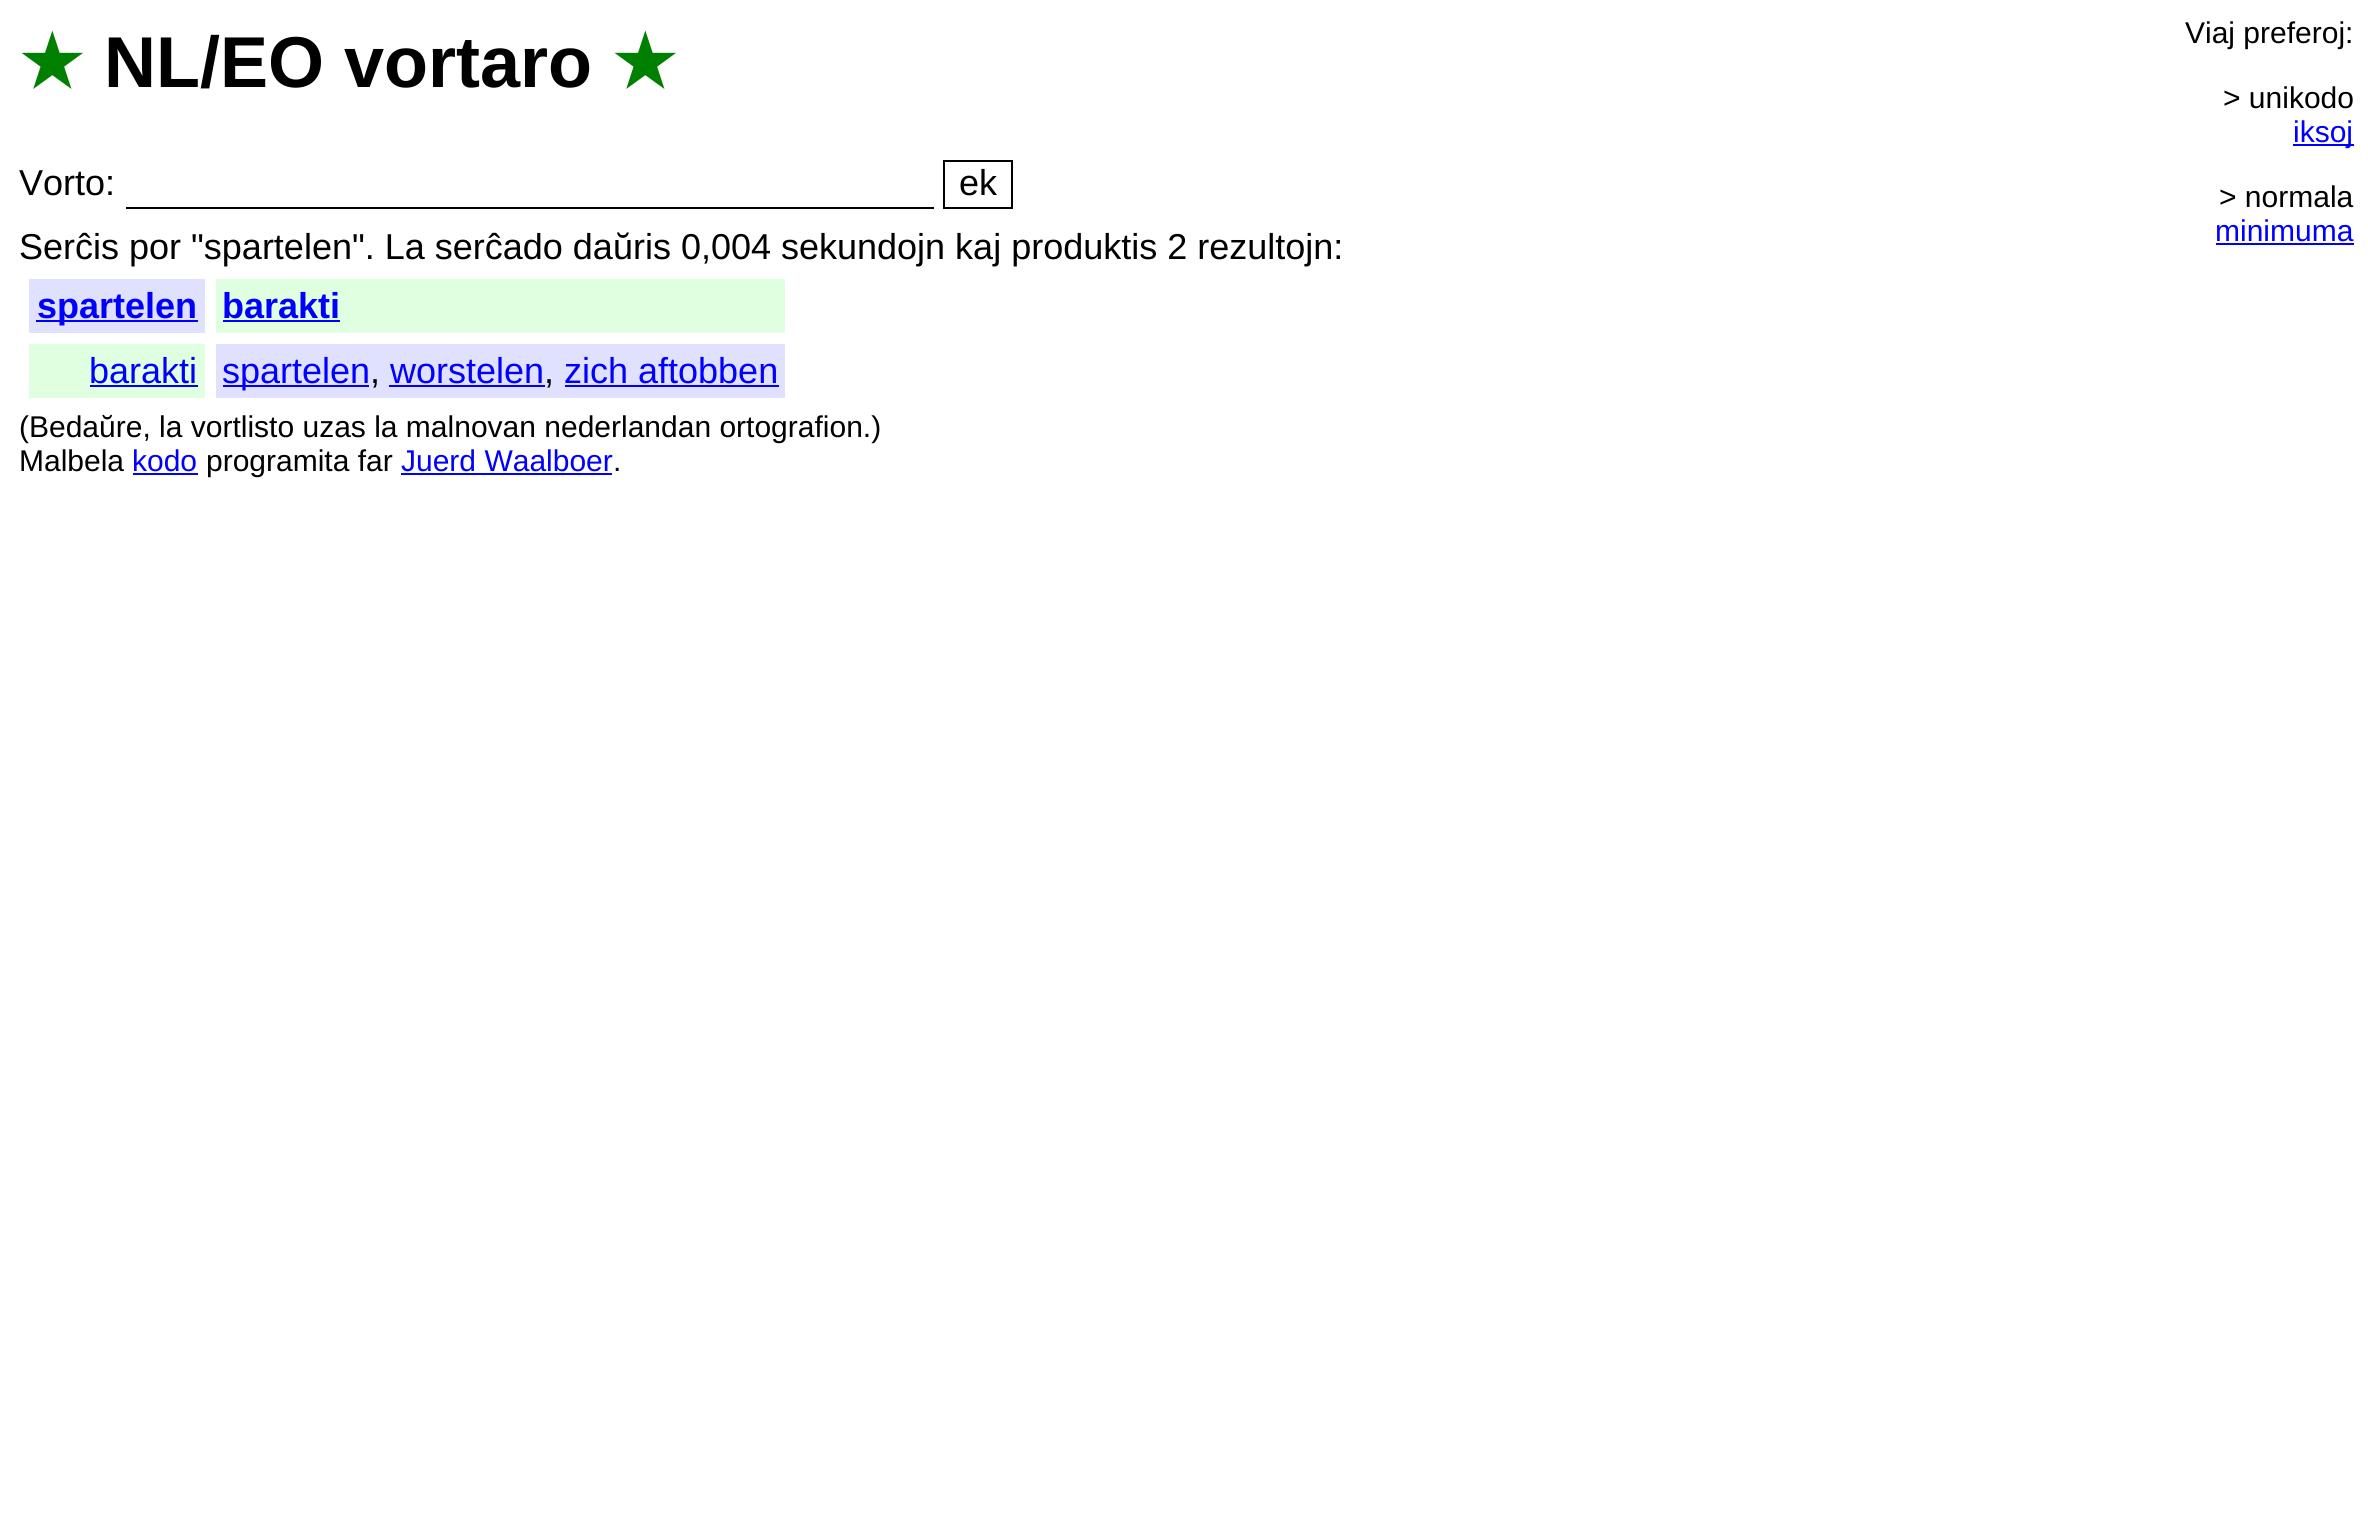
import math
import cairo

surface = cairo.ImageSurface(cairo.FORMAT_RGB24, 2368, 1517)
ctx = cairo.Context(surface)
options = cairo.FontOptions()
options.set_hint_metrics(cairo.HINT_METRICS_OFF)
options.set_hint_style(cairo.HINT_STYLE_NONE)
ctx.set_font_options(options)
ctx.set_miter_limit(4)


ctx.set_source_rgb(1, 1, 1)
ctx.paint()
ctx.select_font_face("DejaVu Sans", cairo.FONT_SLANT_NORMAL, cairo.FONT_WEIGHT_BOLD)
ctx.set_font_size(72)
ctx.set_source_rgb(0, 0.502, 0)
ctx.move_to(19, 87)
ctx.show_text("★")
ctx.select_font_face("Liberation Sans", cairo.FONT_SLANT_NORMAL, cairo.FONT_WEIGHT_BOLD)
ctx.set_source_rgb(0, 0, 0)
ctx.move_to(104, 87)
ctx.show_text("NL/EO vortaro")
ctx.select_font_face("DejaVu Sans", cairo.FONT_SLANT_NORMAL, cairo.FONT_WEIGHT_BOLD)
ctx.set_source_rgb(0, 0.502, 0)
ctx.move_to(612, 87)
ctx.show_text("★")
ctx.select_font_face("Liberation Sans")
ctx.set_font_size(30)
ctx.set_source_rgb(0, 0, 0)
ctx.move_to(2185, 43)
ctx.show_text("Viaj preferoj:")
ctx.move_to(2223, 108)
ctx.show_text("> unikodo")
ctx.set_source_rgb(0, 0, 1)
ctx.rectangle(2293, 144, 61, 2)
ctx.fill()
ctx.move_to(2293, 142)
ctx.show_text("iksoj")
ctx.set_source_rgb(0, 0, 0)
ctx.move_to(2219, 207)
ctx.show_text("> normala")
ctx.set_source_rgb(0, 0, 1)
ctx.move_to(2215, 241)
ctx.show_text("minimuma")
ctx.rectangle(2216, 243, 138, 2)
ctx.fill()
ctx.set_font_size(36)
ctx.set_source_rgb(0, 0, 0)
ctx.move_to(19, 195)
ctx.show_text("Vorto:")
ctx.rectangle(944, 161, 68, 47)
ctx.stroke()
ctx.move_to(959, 195)
ctx.show_text("ek")
ctx.rectangle(126, 207, 808, 2)
ctx.fill()
ctx.move_to(19, 259)
ctx.show_text("Serĉis por \"spartelen\". La serĉado daŭris 0,004 sekundojn kaj produktis 2 rezultojn:")
ctx.set_source_rgb(0.878, 0.878, 1)
ctx.rectangle(29, 279, 176, 54)
ctx.fill()
ctx.set_source_rgb(0, 0, 1)
ctx.rectangle(36, 320, 162, 2)
ctx.fill()
ctx.select_font_face("Liberation Sans", cairo.FONT_SLANT_NORMAL, cairo.FONT_WEIGHT_BOLD)
ctx.move_to(37, 318)
ctx.show_text("spartelen")
ctx.set_source_rgb(0.878, 1, 0.878)
ctx.rectangle(216, 279, 569, 54)
ctx.fill()
ctx.set_source_rgb(0, 0, 1)
ctx.move_to(222, 318)
ctx.show_text("barakti")
ctx.rectangle(223, 320, 117, 2)
ctx.fill()
ctx.set_source_rgb(0.878, 1, 0.878)
ctx.rectangle(29, 344, 176, 54)
ctx.fill()
ctx.select_font_face("Liberation Sans")
ctx.set_source_rgb(0, 0, 1)
ctx.move_to(89, 383)
ctx.show_text("barakti")
ctx.rectangle(90, 385, 108, 2)
ctx.fill()
ctx.set_source_rgb(0.878, 0.878, 1)
ctx.rectangle(216, 344, 569, 54)
ctx.fill()
ctx.set_source_rgb(0, 0, 1)
ctx.rectangle(223, 385, 146, 2)
ctx.fill()
ctx.move_to(222, 383)
ctx.show_text("spartelen")
ctx.set_source_rgb(0, 0, 0)
ctx.move_to(370, 383)
ctx.show_text(",")
ctx.set_source_rgb(0, 0, 1)
ctx.move_to(390, 383)
ctx.show_text("worstelen")
ctx.rectangle(389, 385, 156, 2)
ctx.fill()
ctx.set_source_rgb(0, 0, 0)
ctx.move_to(544, 383)
ctx.show_text(",")
ctx.set_source_rgb(0, 0, 1)
ctx.move_to(564, 383)
ctx.show_text("zich aftobben")
ctx.rectangle(565, 385, 214, 2)
ctx.fill()
ctx.set_font_size(30)
ctx.set_source_rgb(0, 0, 0)
ctx.move_to(19, 437)
ctx.show_text("(Bedaŭre, la vortlisto uzas la malnovan nederlandan ortografion.)")
ctx.move_to(19, 471)
ctx.show_text("Malbela")
ctx.set_source_rgb(0, 0, 1)
ctx.move_to(132, 471)
ctx.show_text("kodo")
ctx.rectangle(133, 473, 65, 2)
ctx.fill()
ctx.set_source_rgb(0, 0, 0)
ctx.move_to(206, 471)
ctx.show_text("programita far")
ctx.set_source_rgb(0, 0, 1)
ctx.move_to(401, 471)
ctx.show_text("Juerd Waalboer")
ctx.set_source_rgb(0, 0, 0)
ctx.move_to(613, 471)
ctx.show_text(".")
ctx.set_source_rgb(0, 0, 1)
ctx.rectangle(401, 473, 211, 2)
ctx.fill()
surface.write_to_png("page.png")
